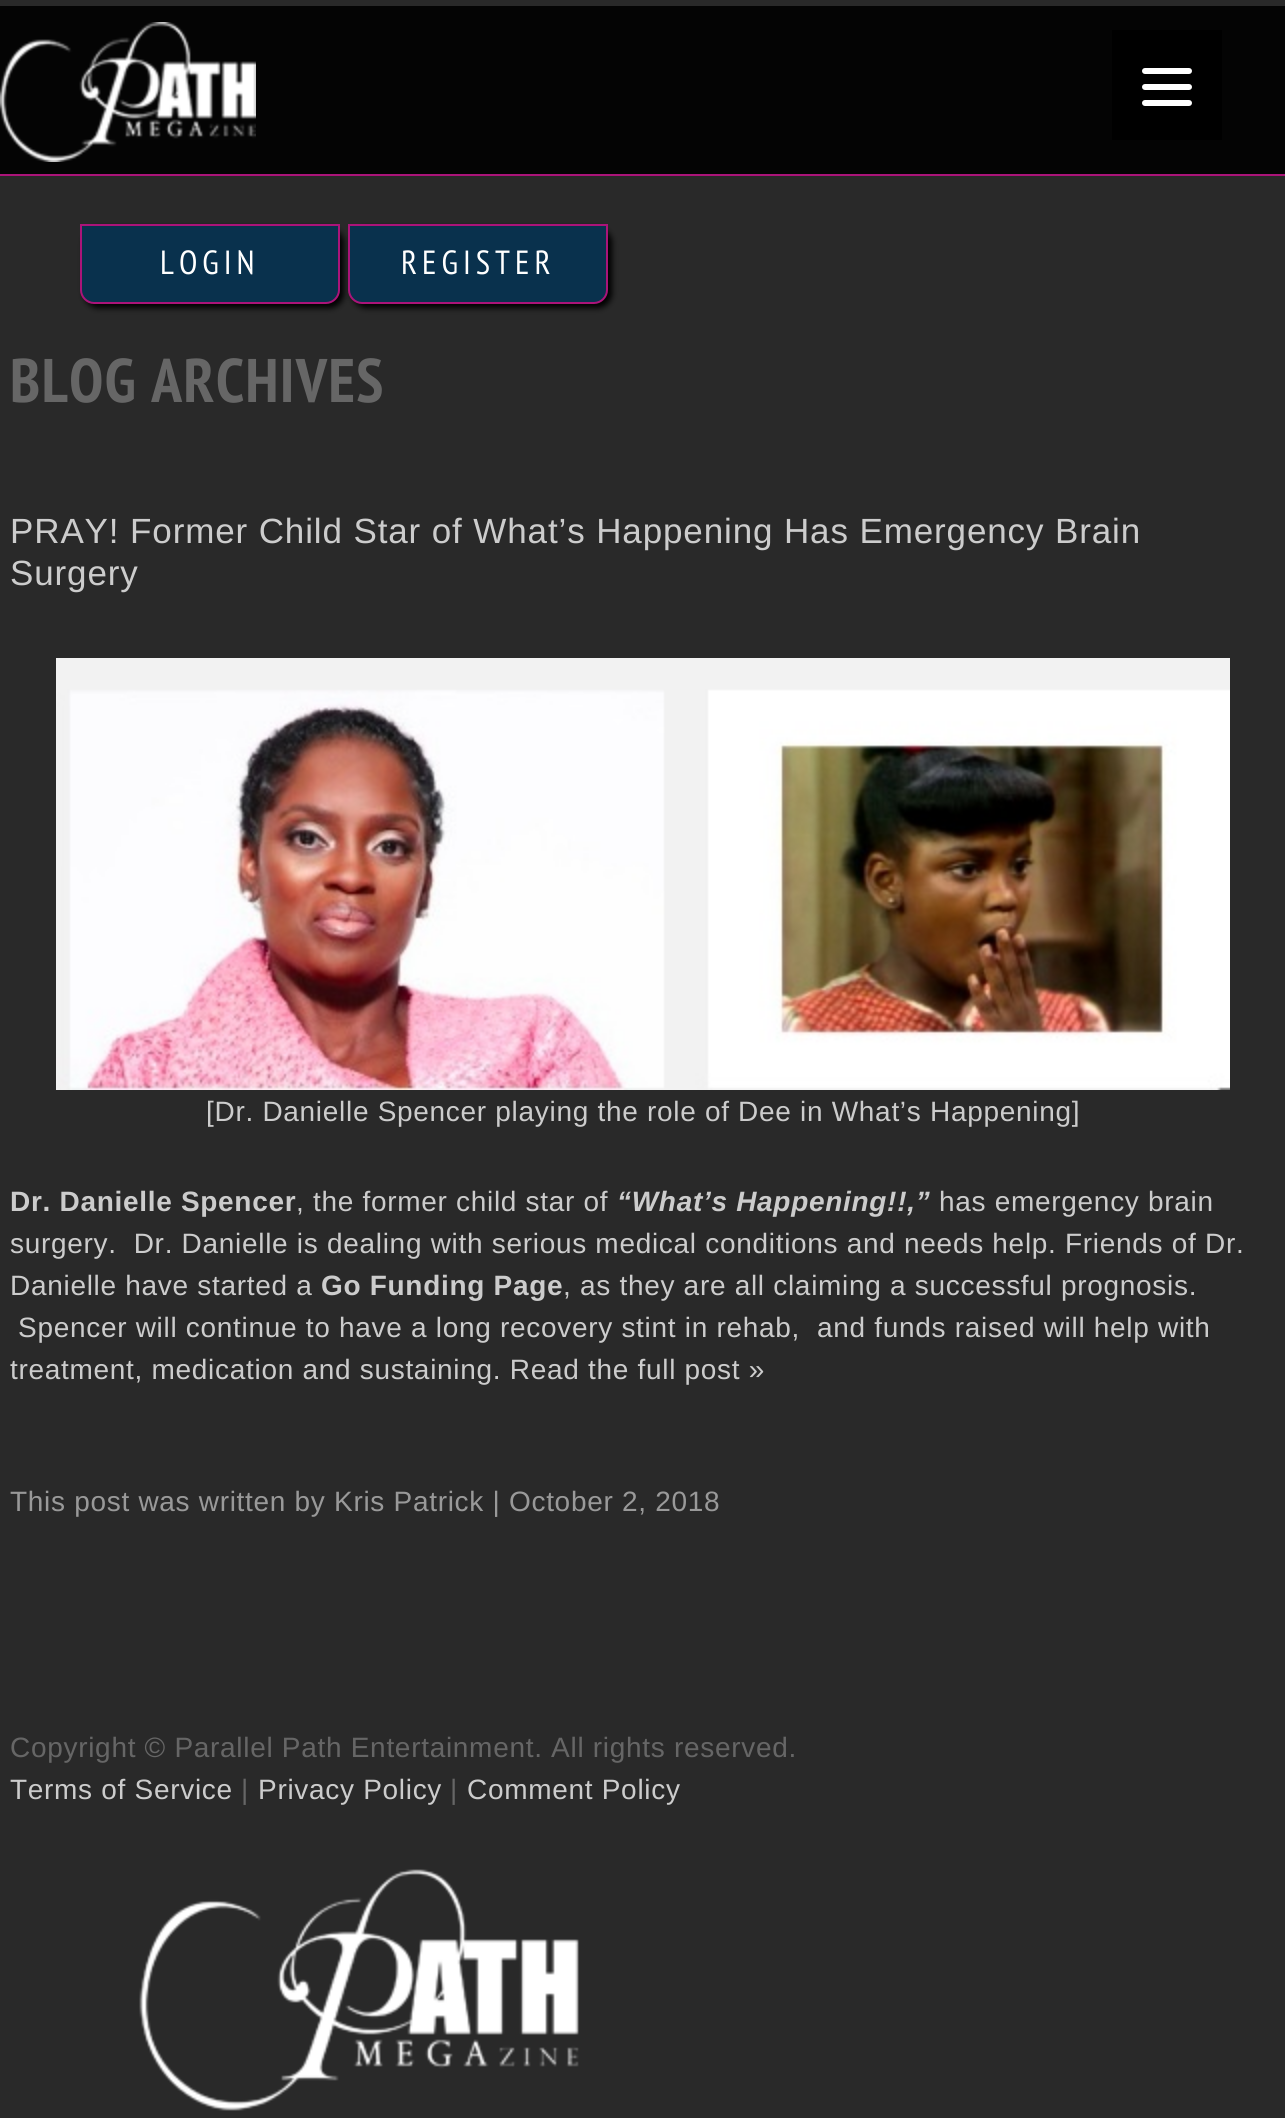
import math
import cairo

surface = cairo.ImageSurface(cairo.FORMAT_RGB24, 1285, 2118)
ctx = cairo.Context(surface)
options = cairo.FontOptions()
options.set_hint_metrics(cairo.HINT_METRICS_OFF)
options.set_hint_style(cairo.HINT_STYLE_NONE)
ctx.set_font_options(options)
ctx.set_miter_limit(4)


def spaced_text(x, y, s, letter, word):
    ctx.move_to(x, y)
    for ch in s:
        ctx.show_text(ch)
        ctx.rel_move_to(letter + word * (ch == ' '), 0)


def round_rect(x, y, w, h, r):
    ctx.new_sub_path()
    for i, (u, v) in enumerate([(x + w - r, y + h - r), (x + r, y + h - r), (x + r, y + r), (x + w - r, y + r)]):
        ctx.arc(u, v, r, i * math.pi / 2, (i + 1) * math.pi / 2)
    ctx.close_path()


def shadow(x, y, w, h, r, blur, alpha):
    ctx.push_group_with_content(cairo.CONTENT_ALPHA)
    ctx.set_operator(cairo.OPERATOR_SOURCE)
    for i in range(15, -16, -2):
        e = blur * i / 6
        if min(w, h) + 2 * e > 0:
            ctx.set_source_rgba(0, 0, 0, alpha * math.erfc((i - 1) / 8.5) / 2)
            round_rect(x - e, y - e, w + 2 * e, h + 2 * e, max(0, min(r + e + blur * .6, min(w, h) / 2 + e)))
            ctx.fill()
    ctx.mask(ctx.pop_group())


def picture(path, x, y, w, h):
    ctx.save()
    ctx.set_source_surface(cairo.ImageSurface.create_from_png(path), x, y)
    ctx.rectangle(x, y, w, h)
    ctx.fill()
    ctx.restore()


ctx.set_source_rgb(0.161, 0.161, 0.161)
ctx.paint()
ctx.set_source_rgb(0.016, 0.016, 0.016)
ctx.rectangle(0, 6, 1285, 168)
ctx.fill()
ctx.set_source_rgb(0, 0, 0)
ctx.rectangle(1112, 30, 110, 110)
ctx.fill()
ctx.set_source_rgb(1, 1, 1)
round_rect(1142, 84, 50, 6, 3)
ctx.fill()
round_rect(1142, 68, 50, 6, 3)
ctx.fill()
round_rect(1142, 100, 50, 6, 3)
ctx.fill()
ctx.set_source_rgb(0.671, 0.082, 0.475)
ctx.rectangle(0, 174, 1285, 2)
ctx.fill()
picture("img1.png", 0, 22, 256, 140)
ctx.set_source_rgb(0, 0, 0)
shadow(84, 228, 260, 80, 14, 3, 1)
ctx.set_source_rgb(0.039, 0.192, 0.302)
ctx.new_path()
ctx.move_to(81, 225)
ctx.line_to(339, 225)
ctx.line_to(339, 290)
ctx.curve_to(339, 297, 333, 303, 326, 303)
ctx.line_to(94, 303)
ctx.curve_to(87, 303, 81, 297, 81, 290)
ctx.close_path()
ctx.fill_preserve()
ctx.set_source_rgb(0.671, 0.082, 0.475)
ctx.stroke()
ctx.select_font_face("PT Sans Narrow")
ctx.set_font_size(33.5)
ctx.set_source_rgb(1, 1, 1)
spaced_text(160, 274, "LOGIN", 5, 0)
ctx.set_source_rgb(0, 0, 0)
shadow(352, 228, 260, 80, 14, 3, 1)
ctx.set_source_rgb(0.039, 0.192, 0.302)
ctx.new_path()
ctx.move_to(349, 225)
ctx.line_to(607, 225)
ctx.line_to(607, 290)
ctx.curve_to(607, 297, 601, 303, 594, 303)
ctx.line_to(362, 303)
ctx.curve_to(355, 303, 349, 297, 349, 290)
ctx.close_path()
ctx.fill_preserve()
ctx.set_source_rgb(0.671, 0.082, 0.475)
ctx.stroke()
ctx.set_source_rgb(1, 1, 1)
spaced_text(401, 274, "REGISTER", 5, 0)
ctx.select_font_face("PT Sans Narrow", cairo.FONT_SLANT_NORMAL, cairo.FONT_WEIGHT_BOLD)
ctx.set_font_size(61.5)
ctx.set_source_rgb(0.4, 0.4, 0.4)
spaced_text(10, 402, "BLOG ARCHIVES", 1.5, 0)
ctx.select_font_face("Liberation Sans")
ctx.set_font_size(35)
ctx.set_source_rgb(0.8, 0.8, 0.8)
spaced_text(10, 543, "PRAY! Former Child Star of What’s Happening Has Emergency Brain", 0.88, 0)
spaced_text(10, 585, "Surgery", 0.88, 0)
picture("img2.png", 56, 658, 1174, 432)
ctx.set_font_size(28)
spaced_text(206, 1121, "[Dr. Danielle Spencer playing the role of Dee in What’s Happening]", 0.7, 0)
ctx.select_font_face("Liberation Sans", cairo.FONT_SLANT_NORMAL, cairo.FONT_WEIGHT_BOLD)
spaced_text(10, 1211, "Dr. Danielle Spencer", 0.7, 0)
ctx.select_font_face("Liberation Sans")
spaced_text(296, 1211, ", the former child star of", 0.7, 0)
ctx.select_font_face("Liberation Sans", cairo.FONT_SLANT_ITALIC, cairo.FONT_WEIGHT_BOLD)
spaced_text(617, 1211, "“What’s Happening!!,”", 0.7, 0)
ctx.select_font_face("Liberation Sans")
spaced_text(939, 1211, "has emergency brain", 0.7, 0)
spaced_text(10, 1253, "surgery.  Dr. Danielle is dealing with serious medical conditions and needs help. Friends of Dr.", 0.7, 0)
spaced_text(10, 1295, "Danielle have started a", 0.7, 0)
ctx.select_font_face("Liberation Sans", cairo.FONT_SLANT_NORMAL, cairo.FONT_WEIGHT_BOLD)
spaced_text(321, 1295, "Go Funding Page", 0.7, 0)
ctx.select_font_face("Liberation Sans")
spaced_text(563, 1295, ", as they are all claiming a successful prognosis.", 0.7, 0)
spaced_text(18, 1337, "Spencer will continue to have a long recovery stint in rehab,  and funds raised will help with", 0.7, 0)
spaced_text(10, 1379, "treatment, medication and sustaining. Read the full post »", 0.7, 0)
ctx.set_source_rgb(0.6, 0.6, 0.6)
spaced_text(10, 1511, "This post was written by Kris Patrick | October 2, 2018", 0.7, 0)
ctx.set_source_rgb(0.4, 0.4, 0.4)
spaced_text(10, 1757, "Copyright © Parallel Path Entertainment. All rights reserved.", 0.7, 0)
ctx.set_source_rgb(0.8, 0.8, 0.8)
spaced_text(10, 1799, "Terms of Service", 0.7, 0)
ctx.set_source_rgb(0.4, 0.4, 0.4)
spaced_text(241, 1799, "|", 0.7, 0)
ctx.set_source_rgb(0.8, 0.8, 0.8)
spaced_text(258, 1799, "Privacy Policy", 0.7, 0)
ctx.set_source_rgb(0.4, 0.4, 0.4)
spaced_text(450, 1799, "|", 0.7, 0)
ctx.set_source_rgb(0.8, 0.8, 0.8)
spaced_text(467, 1799, "Comment Policy", 0.7, 0)
picture("img3.png", 139, 1869, 440, 242)
surface.write_to_png("page.png")
